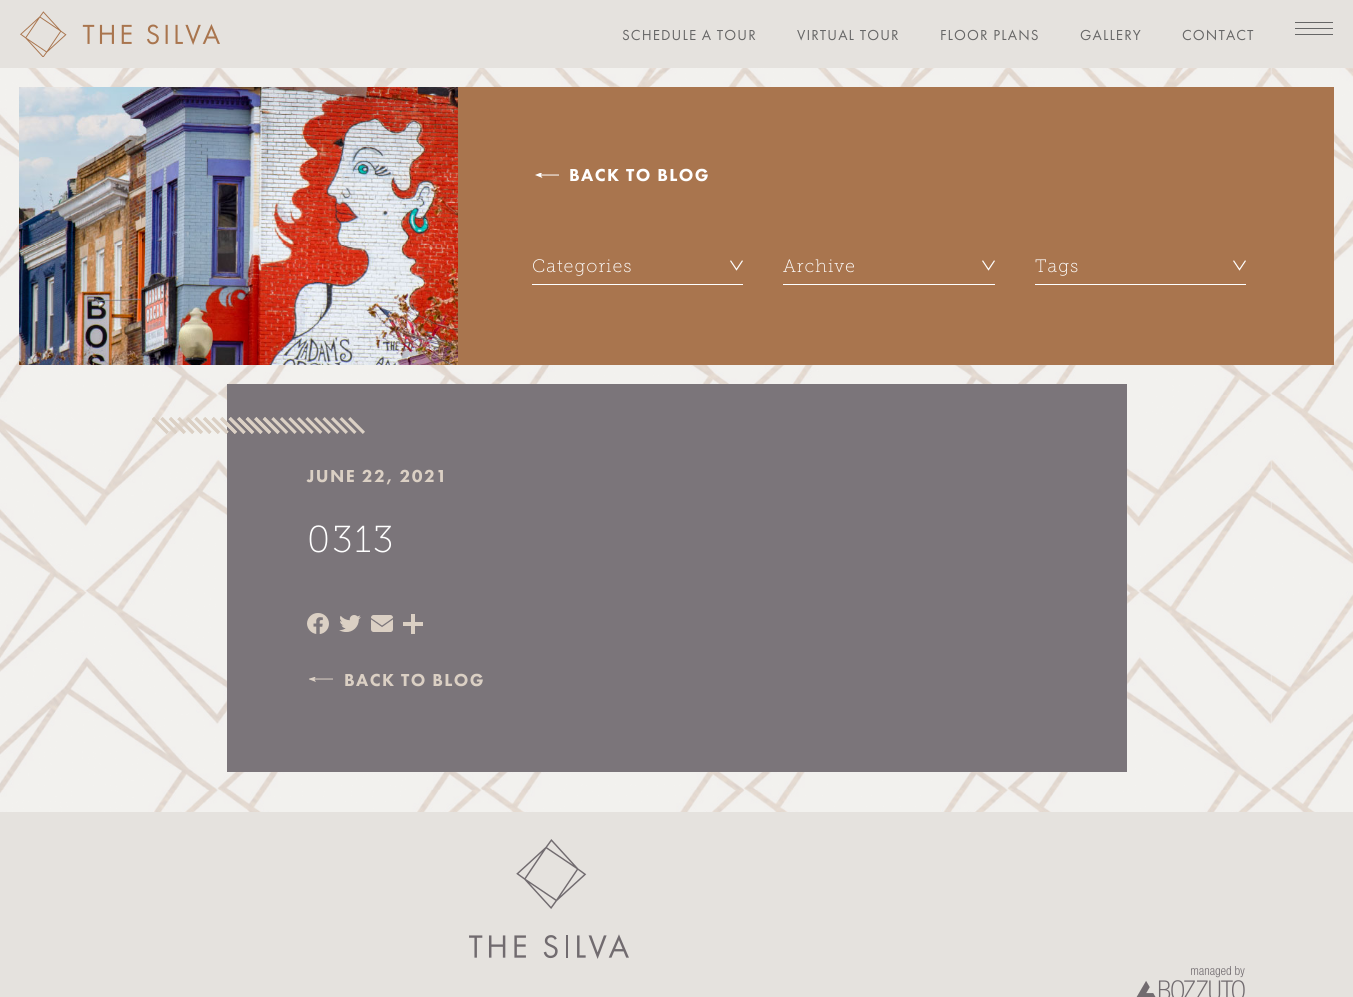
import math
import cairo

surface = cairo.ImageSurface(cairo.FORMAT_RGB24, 1353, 997)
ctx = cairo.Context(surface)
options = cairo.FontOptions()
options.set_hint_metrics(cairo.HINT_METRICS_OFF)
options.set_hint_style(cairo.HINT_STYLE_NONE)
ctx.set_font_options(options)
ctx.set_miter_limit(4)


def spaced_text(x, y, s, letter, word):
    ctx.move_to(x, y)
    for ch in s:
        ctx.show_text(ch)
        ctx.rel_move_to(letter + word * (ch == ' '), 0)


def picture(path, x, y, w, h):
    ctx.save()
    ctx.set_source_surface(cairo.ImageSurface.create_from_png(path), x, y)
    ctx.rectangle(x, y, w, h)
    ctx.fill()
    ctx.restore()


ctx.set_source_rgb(1, 1, 1)
ctx.paint()
ctx.set_source_rgb(0.898, 0.886, 0.871)
ctx.rectangle(0, 0, 1353, 68)
ctx.fill()
picture("img1.png", 20, 11, 200, 46)
ctx.select_font_face("Futura PT")
ctx.set_font_size(15)
ctx.set_source_rgb(0.4, 0.4, 0.4)
spaced_text(622, 40, "SCHEDULE A TOUR", 1.1, 0)
spaced_text(797, 40, "VIRTUAL TOUR", 1.1, 0)
spaced_text(940, 40, "FLOOR PLANS", 1.1, 0)
spaced_text(1080, 40, "GALLERY", 1.1, 0)
spaced_text(1182, 40, "CONTACT", 1.1, 0)
ctx.rectangle(1295, 28, 38, 1)
ctx.fill()
ctx.rectangle(1295, 22, 38, 1)
ctx.fill()
ctx.rectangle(1295, 34, 38, 1)
ctx.fill()
picture("img2.png", 0, 68, 1353, 744)
picture("img3.png", 19, 87, 439, 278)
ctx.set_source_rgb(0.663, 0.459, 0.306)
ctx.rectangle(458, 87, 876, 278)
ctx.fill()
ctx.save()
ctx.rectangle(534, 173, 25, 5)
ctx.clip()
ctx.set_source_rgb(1, 1, 1)
ctx.new_path()
ctx.move_to(535, 175)
ctx.line_to(542.5, 178)
ctx.line_to(541, 175.5)
ctx.line_to(560, 175.5)
ctx.line_to(560, 174.5)
ctx.line_to(541, 174.5)
ctx.line_to(542.5, 172)
ctx.close_path()
ctx.fill()
ctx.restore()
ctx.select_font_face("Futura PT Black")
ctx.set_font_size(18)
ctx.set_source_rgb(1, 1, 1)
spaced_text(569, 181, "BACK TO BLOG", 1.4, 0)
picture("img4.png", 730, 260, 13, 11)
ctx.rectangle(532, 284, 211, 1)
ctx.fill()
ctx.select_font_face("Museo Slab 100 Light")
spaced_text(532, 272, "Categories", 1, 0)
picture("img4.png", 982, 260, 13, 11)
ctx.rectangle(783, 284, 212, 1)
ctx.fill()
spaced_text(783, 272, "Archive", 1, 0)
picture("img4.png", 1233, 260, 13, 11)
ctx.rectangle(1035, 284, 211, 1)
ctx.fill()
spaced_text(1035, 272, "Tags", 1, 0)
ctx.set_source_rgb(0.482, 0.459, 0.478)
ctx.rectangle(227, 384, 900, 388)
ctx.fill()
picture("img5.png", 152, 417, 213, 17)
ctx.select_font_face("Futura PT Black")
ctx.set_source_rgb(0.859, 0.816, 0.769)
spaced_text(307, 482, "JUNE 22, 2021", 1.4, 0)
ctx.select_font_face("Museo Slab 100 Light")
ctx.set_font_size(37.5)
ctx.set_source_rgb(1, 1, 1)
spaced_text(307, 552, "0313", 2, 0)
picture("img6.png", 307, 613, 22, 21)
picture("img7.png", 339, 615, 22, 17)
picture("img8.png", 371, 615, 22, 17)
picture("img9.png", 403, 614, 20, 20)
ctx.save()
ctx.rectangle(309, 677, 25, 5)
ctx.clip()
ctx.set_source_rgb(0.863, 0.82, 0.773)
ctx.new_path()
ctx.move_to(308, 679)
ctx.line_to(316, 682)
ctx.line_to(314.5, 679.5)
ctx.line_to(333, 679.5)
ctx.line_to(333, 678.5)
ctx.line_to(314.5, 678.5)
ctx.line_to(316, 676.5)
ctx.close_path()
ctx.fill()
ctx.restore()
ctx.select_font_face("Futura PT Black")
ctx.set_font_size(18)
ctx.set_source_rgb(0.859, 0.816, 0.769)
spaced_text(344, 686, "BACK TO BLOG", 1.4, 0)
ctx.set_source_rgb(0.898, 0.886, 0.871)
ctx.rectangle(0, 812, 1353, 185)
ctx.fill()
picture("img10.png", 469, 839, 160, 120)
picture("img11.png", 1136, 966, 109, 31)
surface.write_to_png("page.png")
